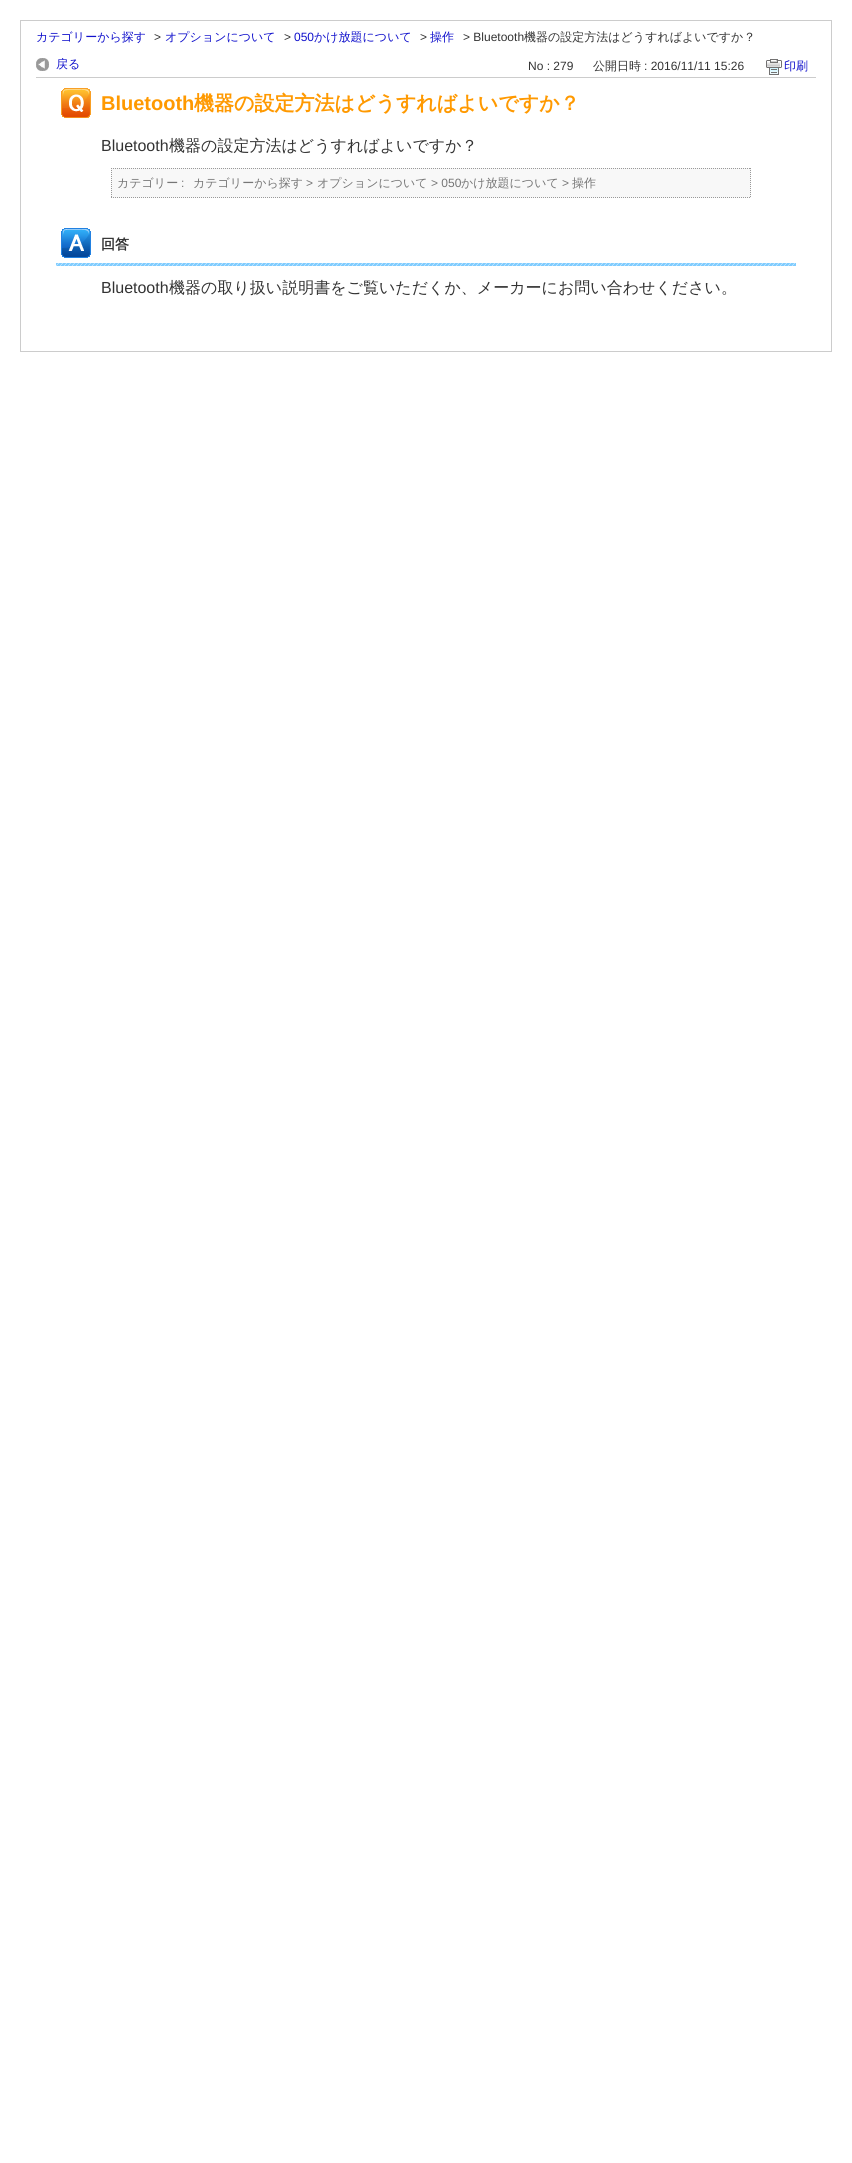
import math
import cairo

surface = cairo.ImageSurface(cairo.FORMAT_RGB24, 852, 2163)
ctx = cairo.Context(surface)
options = cairo.FontOptions()
options.set_hint_metrics(cairo.HINT_METRICS_OFF)
options.set_hint_style(cairo.HINT_STYLE_NONE)
ctx.set_font_options(options)
ctx.set_miter_limit(4)


def picture(path, x, y, w, h):
    ctx.save()
    ctx.set_source_surface(cairo.ImageSurface.create_from_png(path), x, y)
    ctx.rectangle(x, y, w, h)
    ctx.fill()
    ctx.restore()


ctx.set_source_rgb(1, 1, 1)
ctx.paint()
ctx.rectangle(20.5, 20.5, 811, 331)
ctx.set_source_rgb(0.8, 0.8, 0.8)
ctx.set_line_width(1)
ctx.stroke()
ctx.select_font_face("WenQuanYi Zen Hei Medium")
ctx.set_font_size(12)
ctx.set_source_rgb(0.067, 0.067, 0.8)
ctx.move_to(36, 41)
ctx.show_text("カテゴリーから探す")
ctx.select_font_face("Liberation Sans")
ctx.set_source_rgb(0.2, 0.2, 0.2)
ctx.move_to(154, 41)
ctx.show_text(">")
ctx.select_font_face("WenQuanYi Zen Hei Medium")
ctx.set_source_rgb(0.067, 0.067, 0.8)
ctx.move_to(165, 41)
ctx.show_text("オプションについて")
ctx.select_font_face("Liberation Sans")
ctx.set_source_rgb(0.2, 0.2, 0.2)
ctx.move_to(284, 41)
ctx.show_text(">")
ctx.set_source_rgb(0.067, 0.067, 0.8)
ctx.move_to(294, 41)
ctx.show_text("050")
ctx.select_font_face("WenQuanYi Zen Hei Medium")
ctx.move_to(314, 41)
ctx.show_text("かけ放題について")
ctx.select_font_face("Liberation Sans")
ctx.set_source_rgb(0.2, 0.2, 0.2)
ctx.move_to(420, 41)
ctx.show_text(">")
ctx.select_font_face("WenQuanYi Zen Hei Medium")
ctx.set_source_rgb(0.067, 0.067, 0.8)
ctx.move_to(430, 41)
ctx.show_text("操作")
ctx.select_font_face("Liberation Sans")
ctx.set_source_rgb(0.2, 0.2, 0.2)
ctx.move_to(463, 41)
ctx.show_text("> Bluetooth")
ctx.select_font_face("WenQuanYi Zen Hei Medium")
ctx.move_to(524, 41)
ctx.show_text("機器の設定方法はどうすればよいですか？")
ctx.set_source_rgb(0.8, 0.8, 0.8)
ctx.rectangle(36, 77, 780, 1)
ctx.fill()
picture("img1.png", 36, 58, 13, 13)
ctx.set_source_rgb(0.067, 0.067, 0.8)
ctx.move_to(56, 68)
ctx.show_text("戻る")
ctx.select_font_face("Liberation Sans")
ctx.set_source_rgb(0.2, 0.2, 0.2)
ctx.move_to(528, 70)
ctx.show_text("No : 279")
ctx.select_font_face("WenQuanYi Zen Hei Medium")
ctx.move_to(593, 70)
ctx.show_text("公開日時")
ctx.select_font_face("Liberation Sans")
ctx.move_to(644, 70)
ctx.show_text(": 2016/11/11 15:26")
picture("img2.png", 766, 59, 16, 16)
ctx.select_font_face("WenQuanYi Zen Hei Medium")
ctx.set_source_rgb(0.067, 0.067, 0.8)
ctx.move_to(784, 70)
ctx.show_text("印刷")
picture("img3.png", 61, 88, 30, 30)
ctx.select_font_face("Liberation Sans", cairo.FONT_SLANT_NORMAL, cairo.FONT_WEIGHT_BOLD)
ctx.set_font_size(20)
ctx.set_source_rgb(1, 0.6, 0)
ctx.move_to(101, 110)
ctx.show_text("Bluetooth")
ctx.select_font_face("WenQuanYi Zen Hei", cairo.FONT_SLANT_NORMAL, cairo.FONT_WEIGHT_BOLD)
ctx.move_to(194, 110)
ctx.show_text("機器の設定方法はどうすればよいですか？")
ctx.select_font_face("Liberation Sans")
ctx.set_font_size(16)
ctx.set_source_rgb(0.2, 0.2, 0.2)
ctx.move_to(101, 151)
ctx.show_text("Bluetooth")
ctx.select_font_face("WenQuanYi Zen Hei Medium")
ctx.move_to(169, 151)
ctx.show_text("機器の設定方法はどうすればよいですか？")
ctx.set_source_rgb(0.969, 0.969, 0.969)
ctx.rectangle(111, 168, 640, 30)
ctx.fill()
ctx.new_path()
ctx.move_to(111, 168.5)
ctx.line_to(751, 168.5)
ctx.set_source_rgb(0.6, 0.6, 0.6)
ctx.set_dash([1, 1])
ctx.stroke()
ctx.new_path()
ctx.move_to(750.5, 168)
ctx.line_to(750.5, 198)
ctx.stroke()
ctx.new_path()
ctx.move_to(111, 197.5)
ctx.line_to(751, 197.5)
ctx.stroke()
ctx.new_path()
ctx.move_to(111.5, 168)
ctx.line_to(111.5, 198)
ctx.stroke()
ctx.set_font_size(12)
ctx.set_source_rgb(0.463, 0.463, 0.463)
ctx.move_to(117, 187)
ctx.show_text("カテゴリー")
ctx.select_font_face("Liberation Sans")
ctx.move_to(181, 187)
ctx.show_text(":")
ctx.select_font_face("WenQuanYi Zen Hei Medium")
ctx.move_to(193, 187)
ctx.show_text("カテゴリーから探す")
ctx.select_font_face("Liberation Sans")
ctx.move_to(306, 187)
ctx.show_text(">")
ctx.select_font_face("WenQuanYi Zen Hei Medium")
ctx.move_to(317, 187)
ctx.show_text("オプションについて")
ctx.select_font_face("Liberation Sans")
ctx.move_to(431, 187)
ctx.show_text("> 050")
ctx.select_font_face("WenQuanYi Zen Hei Medium")
ctx.move_to(461, 187)
ctx.show_text("かけ放題について")
ctx.select_font_face("Liberation Sans")
ctx.move_to(562, 187)
ctx.show_text(">")
ctx.select_font_face("WenQuanYi Zen Hei Medium")
ctx.move_to(572, 187)
ctx.show_text("操作")
picture("img4.png", 56, 263, 740, 3)
picture("img5.png", 61, 228, 30, 30)
ctx.select_font_face("WenQuanYi Zen Hei", cairo.FONT_SLANT_NORMAL, cairo.FONT_WEIGHT_BOLD)
ctx.set_font_size(14)
ctx.set_source_rgb(0.2, 0.2, 0.2)
ctx.move_to(101, 249)
ctx.show_text("回答")
ctx.select_font_face("Liberation Sans")
ctx.set_font_size(16)
ctx.move_to(101, 293)
ctx.show_text("Bluetooth")
ctx.select_font_face("WenQuanYi Zen Hei Medium")
ctx.move_to(169, 293)
ctx.show_text("機器の取り扱い説明書をご覧いただくか、メーカーにお問い合わせください。")
surface.write_to_png("page.png")
